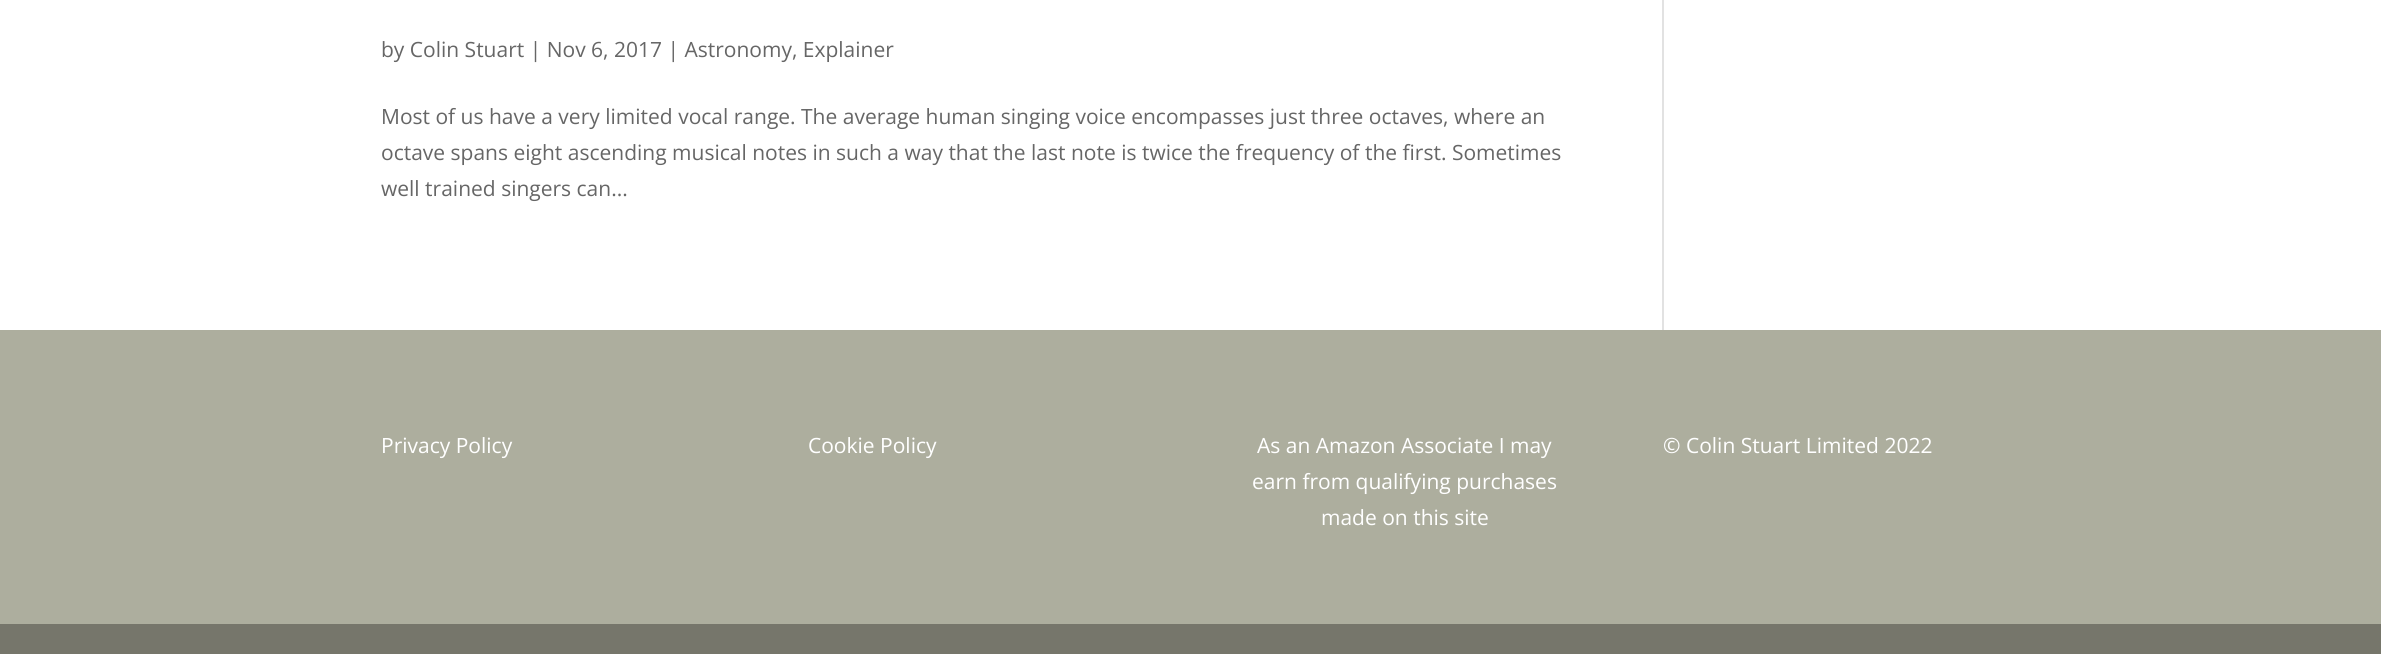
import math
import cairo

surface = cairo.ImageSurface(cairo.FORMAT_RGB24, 2381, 654)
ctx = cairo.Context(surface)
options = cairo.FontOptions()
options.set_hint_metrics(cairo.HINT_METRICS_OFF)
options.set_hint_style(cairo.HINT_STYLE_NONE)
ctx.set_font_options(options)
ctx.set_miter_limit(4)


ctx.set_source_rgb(1, 1, 1)
ctx.paint()
ctx.select_font_face("Open Sans")
ctx.set_font_size(21)
ctx.set_source_rgb(0.4, 0.4, 0.4)
ctx.move_to(381, 57)
ctx.show_text("by Colin Stuart | Nov 6, 2017 | Astronomy, Explainer")
ctx.move_to(381, 124)
ctx.show_text("Most of us have a very limited vocal range. The average human singing voice encompasses just three octaves, where an")
ctx.move_to(381, 160)
ctx.show_text("octave spans eight ascending musical notes in such a way that the last note is twice the frequency of the first. Sometimes")
ctx.move_to(381, 196)
ctx.show_text("well trained singers can...")
ctx.set_source_rgb(0.886, 0.886, 0.886)
ctx.rectangle(1662, 0, 2, 330)
ctx.fill()
ctx.set_source_rgb(0.678, 0.682, 0.62)
ctx.rectangle(0, 330, 2381, 294)
ctx.fill()
ctx.set_source_rgb(1, 1, 1)
ctx.move_to(381, 453)
ctx.show_text("Privacy Policy")
ctx.move_to(808, 453)
ctx.show_text("Cookie Policy")
ctx.move_to(1257, 453)
ctx.show_text("As an Amazon Associate I may")
ctx.move_to(1252, 489)
ctx.show_text("earn from qualifying purchases")
ctx.move_to(1321, 525)
ctx.show_text("made on this site")
ctx.move_to(1663, 453)
ctx.show_text("© Colin Stuart Limited 2022")
ctx.set_source_rgb(0.463, 0.463, 0.42)
ctx.rectangle(0, 624, 2381, 30)
ctx.fill()
surface.write_to_png("page.png")
